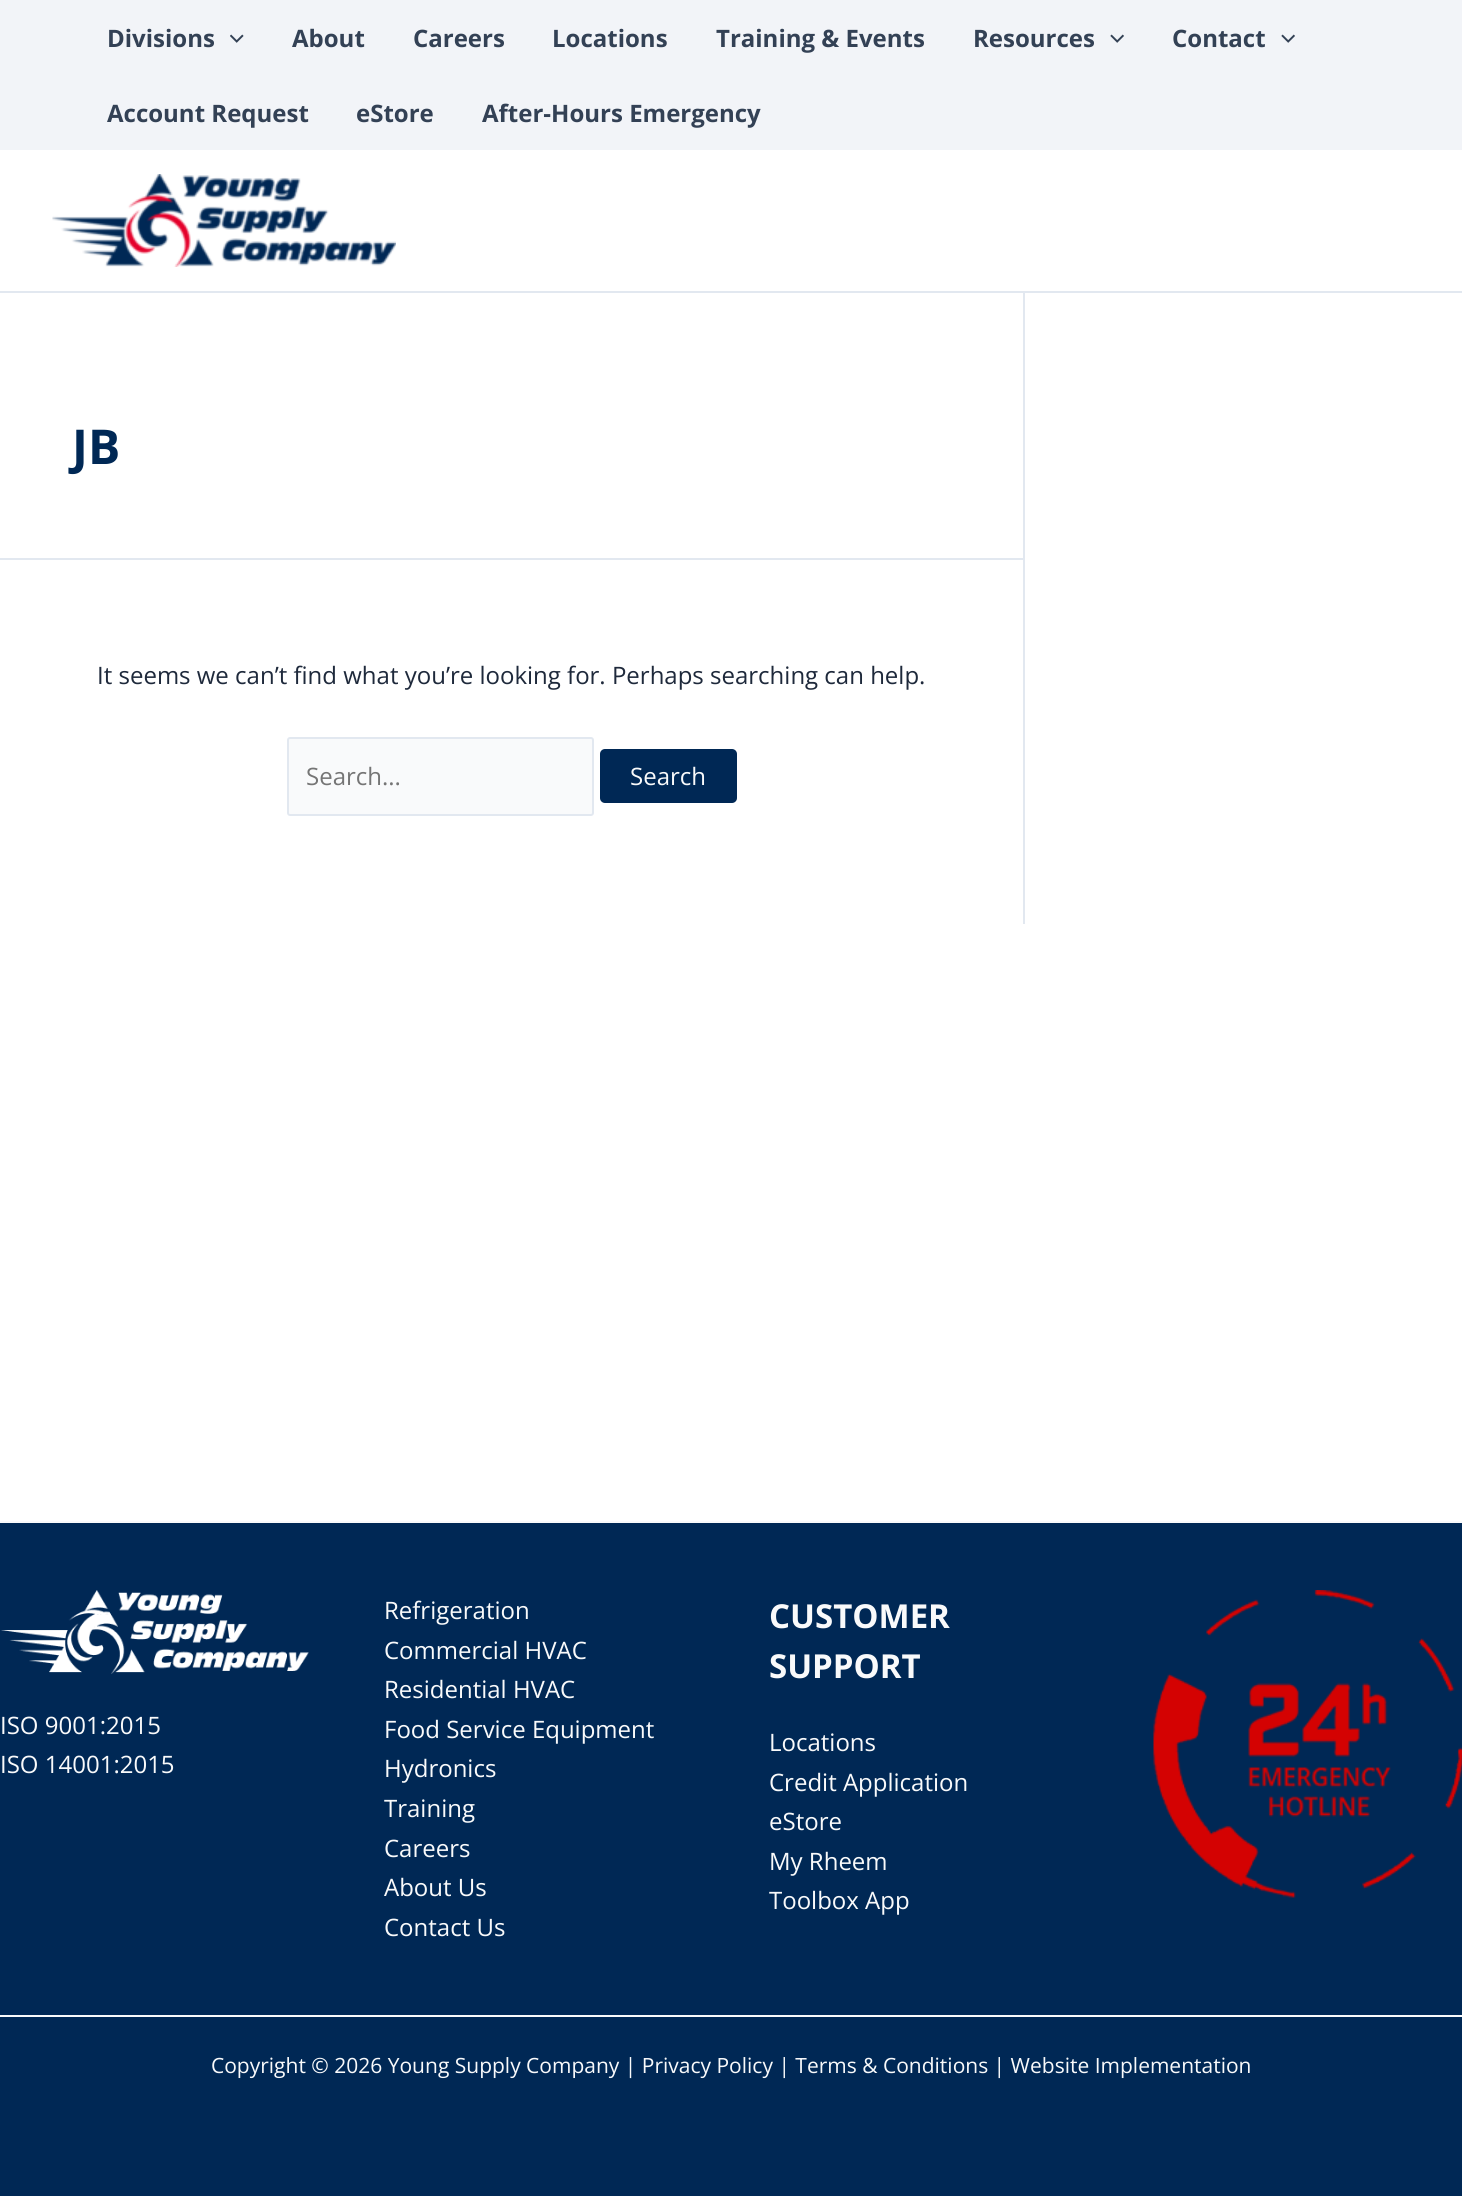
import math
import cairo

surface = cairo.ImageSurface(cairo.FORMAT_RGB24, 1462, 2196)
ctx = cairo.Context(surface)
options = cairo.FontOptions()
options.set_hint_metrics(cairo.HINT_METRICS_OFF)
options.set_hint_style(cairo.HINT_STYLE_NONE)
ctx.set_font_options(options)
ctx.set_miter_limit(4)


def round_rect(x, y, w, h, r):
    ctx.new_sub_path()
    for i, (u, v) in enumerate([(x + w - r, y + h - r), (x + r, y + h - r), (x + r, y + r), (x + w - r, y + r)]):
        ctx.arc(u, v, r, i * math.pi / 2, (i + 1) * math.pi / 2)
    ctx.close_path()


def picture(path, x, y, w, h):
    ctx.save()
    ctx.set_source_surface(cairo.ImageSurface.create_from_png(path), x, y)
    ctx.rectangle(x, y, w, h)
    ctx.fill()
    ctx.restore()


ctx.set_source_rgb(1, 1, 1)
ctx.paint()
ctx.set_source_rgb(0.949, 0.957, 0.969)
ctx.rectangle(0, 0, 1462, 150)
ctx.fill()
ctx.select_font_face("Open Sans", cairo.FONT_SLANT_NORMAL, cairo.FONT_WEIGHT_BOLD)
ctx.set_font_size(24)
ctx.set_source_rgb(0.2, 0.255, 0.333)
ctx.move_to(107, 47)
ctx.show_text("Divisions")
picture("img1.png", 230, 34, 14, 9)
ctx.move_to(292, 47)
ctx.show_text("About")
ctx.move_to(413, 47)
ctx.show_text("Careers")
ctx.move_to(552, 47)
ctx.show_text("Locations")
ctx.move_to(716, 47)
ctx.show_text("Training & Events")
ctx.move_to(973, 47)
ctx.show_text("Resources")
picture("img2.png", 1110, 34, 14, 9)
ctx.move_to(1172, 47)
ctx.show_text("Contact")
picture("img2.png", 1281, 34, 14, 9)
ctx.move_to(107, 122)
ctx.show_text("Account Request")
ctx.move_to(356, 122)
ctx.show_text("eStore")
ctx.move_to(482, 122)
ctx.show_text("After-Hours Emergency")
ctx.set_source_rgb(0.886, 0.91, 0.941)
ctx.rectangle(0, 291, 1462, 2)
ctx.fill()
picture("img3.png", 52, 174, 344, 93)
ctx.rectangle(1023, 293, 2, 631)
ctx.fill()
ctx.rectangle(0, 558, 1023, 2)
ctx.fill()
ctx.set_font_size(48)
ctx.set_source_rgb(0, 0.157, 0.333)
ctx.move_to(72, 464)
ctx.show_text("JB")
ctx.select_font_face("Open Sans")
ctx.set_font_size(24)
ctx.set_source_rgb(0.118, 0.161, 0.231)
ctx.move_to(97, 684)
ctx.show_text("It seems we can’t find what you’re looking for. Perhaps searching can help.")
ctx.set_source_rgb(0.976, 0.98, 0.984)
round_rect(288, 738, 305, 77, 2)
ctx.fill_preserve()
ctx.set_source_rgb(0.886, 0.91, 0.941)
ctx.stroke()
ctx.set_source_rgb(0.459, 0.459, 0.459)
ctx.move_to(306, 785)
ctx.show_text("Search...")
ctx.set_source_rgb(0, 0.157, 0.333)
round_rect(600, 749, 137, 54, 5)
ctx.fill()
ctx.set_source_rgb(0.976, 0.98, 0.984)
ctx.move_to(630, 785)
ctx.show_text("Search")
ctx.set_source_rgb(0, 0.157, 0.333)
ctx.rectangle(0, 1523, 1462, 492)
ctx.fill()
ctx.set_source_rgb(0.976, 0.98, 0.984)
ctx.rectangle(0, 1521, 1462, 2)
ctx.fill()
picture("img4.png", 1, 1590, 308, 84)
ctx.move_to(0, 1734)
ctx.show_text("ISO 9001:2015")
ctx.move_to(0, 1773)
ctx.show_text("ISO 14001:2015")
ctx.move_to(384, 1619)
ctx.show_text("Refrigeration")
ctx.move_to(384, 1659)
ctx.show_text("Commercial HVAC")
ctx.move_to(384, 1698)
ctx.show_text("Residential HVAC")
ctx.move_to(384, 1738)
ctx.show_text("Food Service Equipment")
ctx.move_to(384, 1777)
ctx.show_text("Hydronics")
ctx.move_to(384, 1817)
ctx.show_text("Training")
ctx.move_to(384, 1857)
ctx.show_text("Careers")
ctx.move_to(384, 1896)
ctx.show_text("About Us")
ctx.move_to(384, 1936)
ctx.show_text("Contact Us")
ctx.select_font_face("Open Sans", cairo.FONT_SLANT_NORMAL, cairo.FONT_WEIGHT_BOLD)
ctx.set_font_size(33)
ctx.move_to(769, 1628)
ctx.show_text("CUSTOMER")
ctx.move_to(769, 1678)
ctx.show_text("SUPPORT")
ctx.select_font_face("Open Sans")
ctx.set_font_size(24)
ctx.move_to(769, 1751)
ctx.show_text("Locations")
ctx.move_to(769, 1791)
ctx.show_text("Credit Application")
ctx.move_to(769, 1830)
ctx.show_text("eStore")
ctx.move_to(769, 1870)
ctx.show_text("My Rheem")
ctx.move_to(769, 1909)
ctx.show_text("Toolbox App")
picture("img5.png", 1153, 1590, 309, 308)
ctx.set_source_rgb(0, 0.157, 0.333)
ctx.rectangle(0, 2017, 1462, 179)
ctx.fill()
ctx.set_source_rgb(0.976, 0.98, 0.984)
ctx.rectangle(0, 2015, 1462, 2)
ctx.fill()
ctx.set_font_size(21)
ctx.move_to(211, 2073)
ctx.show_text("Copyright © 2026 Young Supply Company | Privacy Policy | Terms & Conditions | Website Implementation")
surface.write_to_png("page.png")
